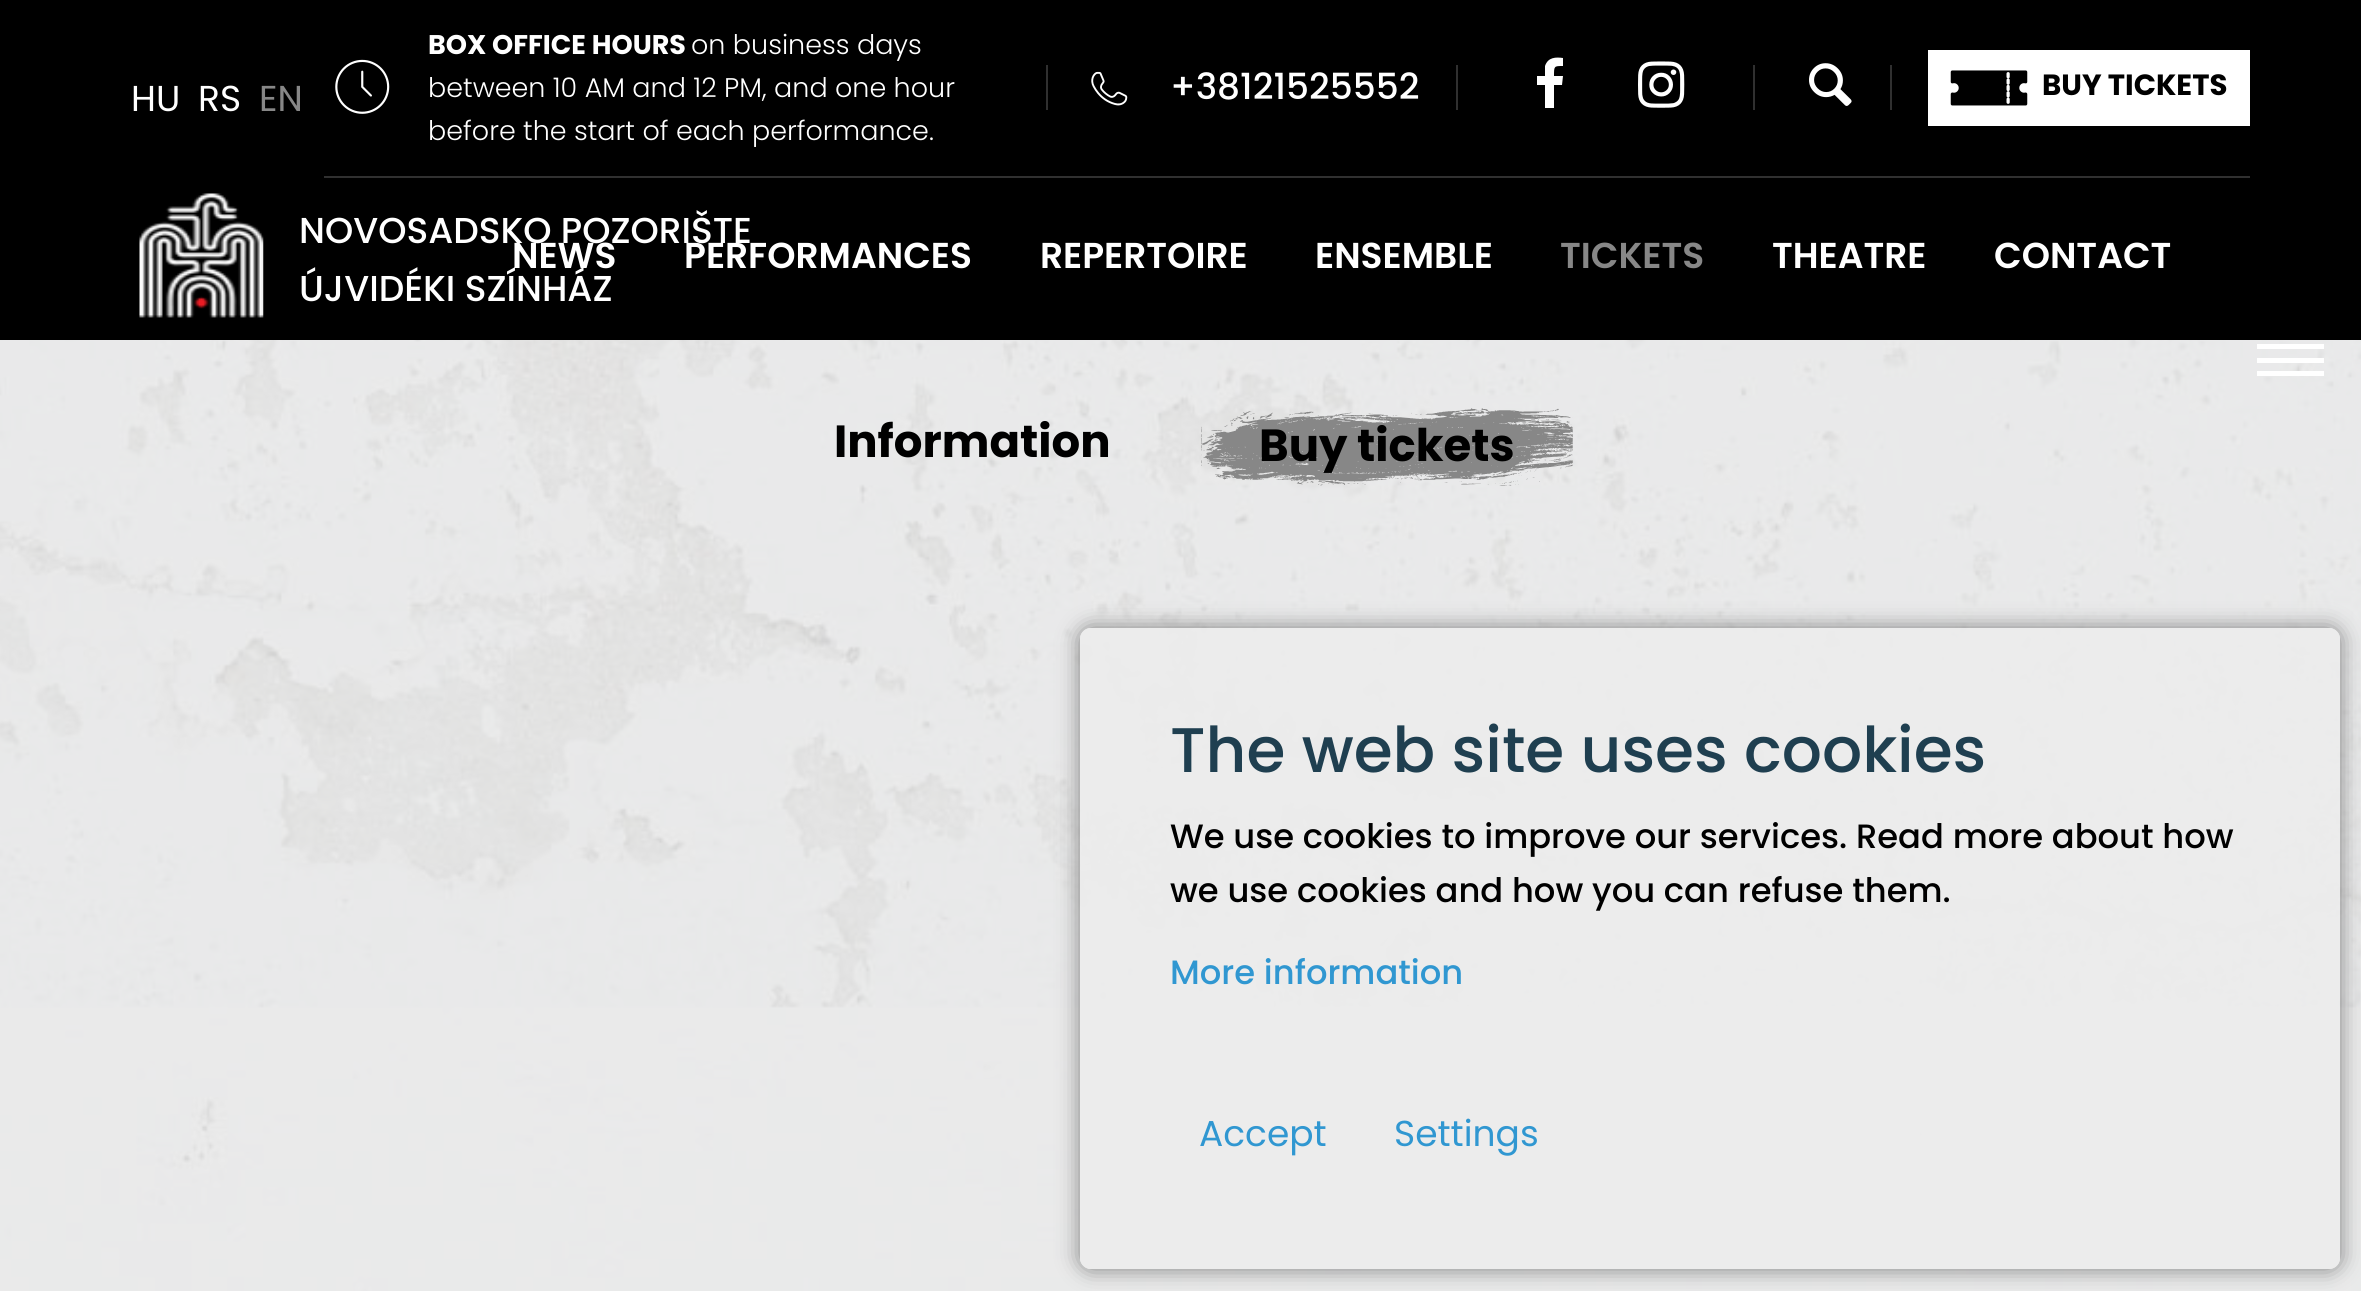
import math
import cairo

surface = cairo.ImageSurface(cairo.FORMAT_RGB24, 2361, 1291)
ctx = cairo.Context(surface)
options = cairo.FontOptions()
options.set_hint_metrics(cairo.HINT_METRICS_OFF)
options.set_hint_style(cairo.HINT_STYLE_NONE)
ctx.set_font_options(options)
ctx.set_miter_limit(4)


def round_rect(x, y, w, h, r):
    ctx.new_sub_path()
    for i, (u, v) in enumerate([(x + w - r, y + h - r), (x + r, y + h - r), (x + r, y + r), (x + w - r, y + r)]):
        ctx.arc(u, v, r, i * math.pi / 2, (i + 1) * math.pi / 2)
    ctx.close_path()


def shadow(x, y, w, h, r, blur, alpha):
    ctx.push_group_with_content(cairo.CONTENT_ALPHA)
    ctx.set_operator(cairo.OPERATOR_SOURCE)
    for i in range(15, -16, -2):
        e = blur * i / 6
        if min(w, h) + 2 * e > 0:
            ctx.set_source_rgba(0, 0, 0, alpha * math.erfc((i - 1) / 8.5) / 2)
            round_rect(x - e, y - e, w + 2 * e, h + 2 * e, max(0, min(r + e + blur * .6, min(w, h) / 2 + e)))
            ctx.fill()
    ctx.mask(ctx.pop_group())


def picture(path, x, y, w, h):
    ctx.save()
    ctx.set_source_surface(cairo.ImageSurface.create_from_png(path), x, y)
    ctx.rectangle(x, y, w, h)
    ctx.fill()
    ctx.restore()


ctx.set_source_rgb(1, 1, 1)
ctx.paint()
picture("img1.png", 0, 340, 2361, 951)
ctx.set_source_rgb(0, 0, 0)
ctx.rectangle(0, 0, 2361, 340)
ctx.fill()
ctx.select_font_face("Poppins")
ctx.set_font_size(36)
ctx.set_source_rgb(1, 1, 1)
ctx.move_to(131, 111)
ctx.show_text("HU")
ctx.move_to(198, 111)
ctx.show_text("RS")
ctx.set_source_rgb(0.529, 0.529, 0.529)
ctx.move_to(259, 111)
ctx.show_text("EN")
ctx.set_source_rgb(0.188, 0.188, 0.188)
ctx.rectangle(324, 176, 1926, 2)
ctx.fill()
picture("img2.png", 335, 59, 55, 55)
ctx.select_font_face("Poppins", cairo.FONT_SLANT_NORMAL, cairo.FONT_WEIGHT_BOLD)
ctx.set_font_size(27)
ctx.set_source_rgb(1, 1, 1)
ctx.move_to(428, 54)
ctx.show_text("BOX OFFICE HOURS")
ctx.select_font_face("Poppins Light")
ctx.move_to(691, 54)
ctx.show_text("on business days")
ctx.move_to(428, 97)
ctx.show_text("between 10 AM and 12 PM, and one hour")
ctx.move_to(428, 140)
ctx.show_text("before the start of each performance.")
ctx.set_source_rgb(0.188, 0.188, 0.188)
ctx.rectangle(1046, 65, 2, 45)
ctx.fill()
picture("img3.png", 1091, 71, 37, 35)
ctx.select_font_face("Poppins Medium")
ctx.set_font_size(36)
ctx.set_source_rgb(1, 1, 1)
ctx.move_to(1170, 99)
ctx.show_text("+38121525552")
ctx.set_source_rgb(0.188, 0.188, 0.188)
ctx.rectangle(1456, 65, 2, 45)
ctx.fill()
ctx.set_source_rgb(1, 1, 1)
ctx.new_path()
ctx.move_to(1563, 58)
ctx.line_to(1563, 66)
ctx.curve_to(1554, 66, 1554, 66, 1554, 76)
ctx.line_to(1563, 76)
ctx.line_to(1562, 85)
ctx.line_to(1554, 85)
ctx.line_to(1554, 108)
ctx.line_to(1545, 108)
ctx.line_to(1545, 85)
ctx.line_to(1537, 85)
ctx.line_to(1537, 76)
ctx.line_to(1545, 76)
ctx.line_to(1545, 66)
ctx.curve_to(1548, 57, 1556, 57, 1563, 58)
ctx.close_path()
ctx.fill()
picture("img4.png", 1638, 61, 47, 47)
ctx.set_source_rgb(0.188, 0.188, 0.188)
ctx.rectangle(1753, 65, 2, 45)
ctx.fill()
picture("img5.png", 1809, 63, 43, 43)
ctx.rectangle(1890, 65, 2, 45)
ctx.fill()
ctx.set_source_rgb(1, 1, 1)
ctx.rectangle(1928, 50, 322, 76)
ctx.fill()
picture("img6.png", 1950, 70, 78, 36)
ctx.select_font_face("Poppins", cairo.FONT_SLANT_NORMAL, cairo.FONT_WEIGHT_BOLD)
ctx.set_font_size(29.25)
ctx.set_source_rgb(0, 0, 0)
ctx.move_to(2042, 95)
ctx.show_text("BUY TICKETS")
picture("img7.png", 139, 193, 125, 125)
ctx.select_font_face("Poppins Medium")
ctx.set_font_size(36)
ctx.set_source_rgb(1, 1, 1)
ctx.move_to(299, 243)
ctx.show_text("NOVOSADSKO POZORIŠTE")
ctx.move_to(299, 301)
ctx.show_text("ÚJVIDÉKI SZÍNHÁZ")
ctx.select_font_face("Poppins SemiBold")
ctx.move_to(512, 268)
ctx.show_text("NEWS")
ctx.move_to(684, 268)
ctx.show_text("PERFORMANCES")
ctx.move_to(1040, 268)
ctx.show_text("REPERTOIRE")
ctx.move_to(1315, 268)
ctx.show_text("ENSEMBLE")
ctx.set_source_rgb(0.529, 0.529, 0.529)
ctx.move_to(1560, 268)
ctx.show_text("TICKETS")
ctx.set_source_rgb(1, 1, 1)
ctx.move_to(1772, 268)
ctx.show_text("THEATRE")
ctx.move_to(1994, 268)
ctx.show_text("CONTACT")
ctx.rectangle(2257, 358, 67, 5)
ctx.fill()
ctx.rectangle(2257, 344, 67, 5)
ctx.fill()
ctx.rectangle(2257, 371, 67, 5)
ctx.fill()
ctx.select_font_face("Poppins", cairo.FONT_SLANT_NORMAL, cairo.FONT_WEIGHT_BOLD)
ctx.set_font_size(45)
ctx.set_source_rgb(0, 0, 0)
ctx.move_to(834, 457)
ctx.show_text("Information")
picture("img8.png", 1201, 408, 372, 78)
ctx.move_to(1259, 461)
ctx.show_text("Buy tickets")
ctx.save()
ctx.set_fill_rule(cairo.FILL_RULE_EVEN_ODD)
ctx.new_path()
ctx.move_to(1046, 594)
ctx.line_to(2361, 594)
ctx.line_to(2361, 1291)
ctx.line_to(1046, 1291)
ctx.close_path()
ctx.move_to(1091, 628)
ctx.line_to(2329, 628)
ctx.curve_to(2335, 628, 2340, 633, 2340, 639)
ctx.line_to(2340, 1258)
ctx.curve_to(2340, 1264, 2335, 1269, 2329, 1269)
ctx.line_to(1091, 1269)
ctx.curve_to(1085, 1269, 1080, 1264, 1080, 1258)
ctx.line_to(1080, 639)
ctx.curve_to(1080, 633, 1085, 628, 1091, 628)
ctx.close_path()
ctx.clip()
ctx.set_source_rgb(0.502, 0.502, 0.502)
shadow(1080, 628, 1260, 641, 11, 11, 1)
ctx.restore()
ctx.set_source_rgba(0.922, 0.922, 0.922, 0.98)
round_rect(1080, 628, 1260, 641, 11)
ctx.fill()
ctx.select_font_face("Poppins Medium")
ctx.set_font_size(63)
ctx.set_source_rgb(0.122, 0.247, 0.314)
ctx.move_to(1170, 772)
ctx.show_text("The web site uses cookies")
ctx.set_font_size(33.75)
ctx.set_source_rgb(0, 0, 0)
ctx.move_to(1170, 848)
ctx.show_text("We use cookies to improve our services. Read more about how")
ctx.move_to(1170, 902)
ctx.show_text("we use cookies and how you can refuse them.")
ctx.set_source_rgb(0.188, 0.592, 0.82)
ctx.move_to(1170, 984)
ctx.show_text("More information")
ctx.select_font_face("Poppins")
ctx.set_font_size(36)
ctx.move_to(1199, 1146)
ctx.show_text("Accept")
ctx.move_to(1394, 1146)
ctx.show_text("Settings")
surface.write_to_png("page.png")
